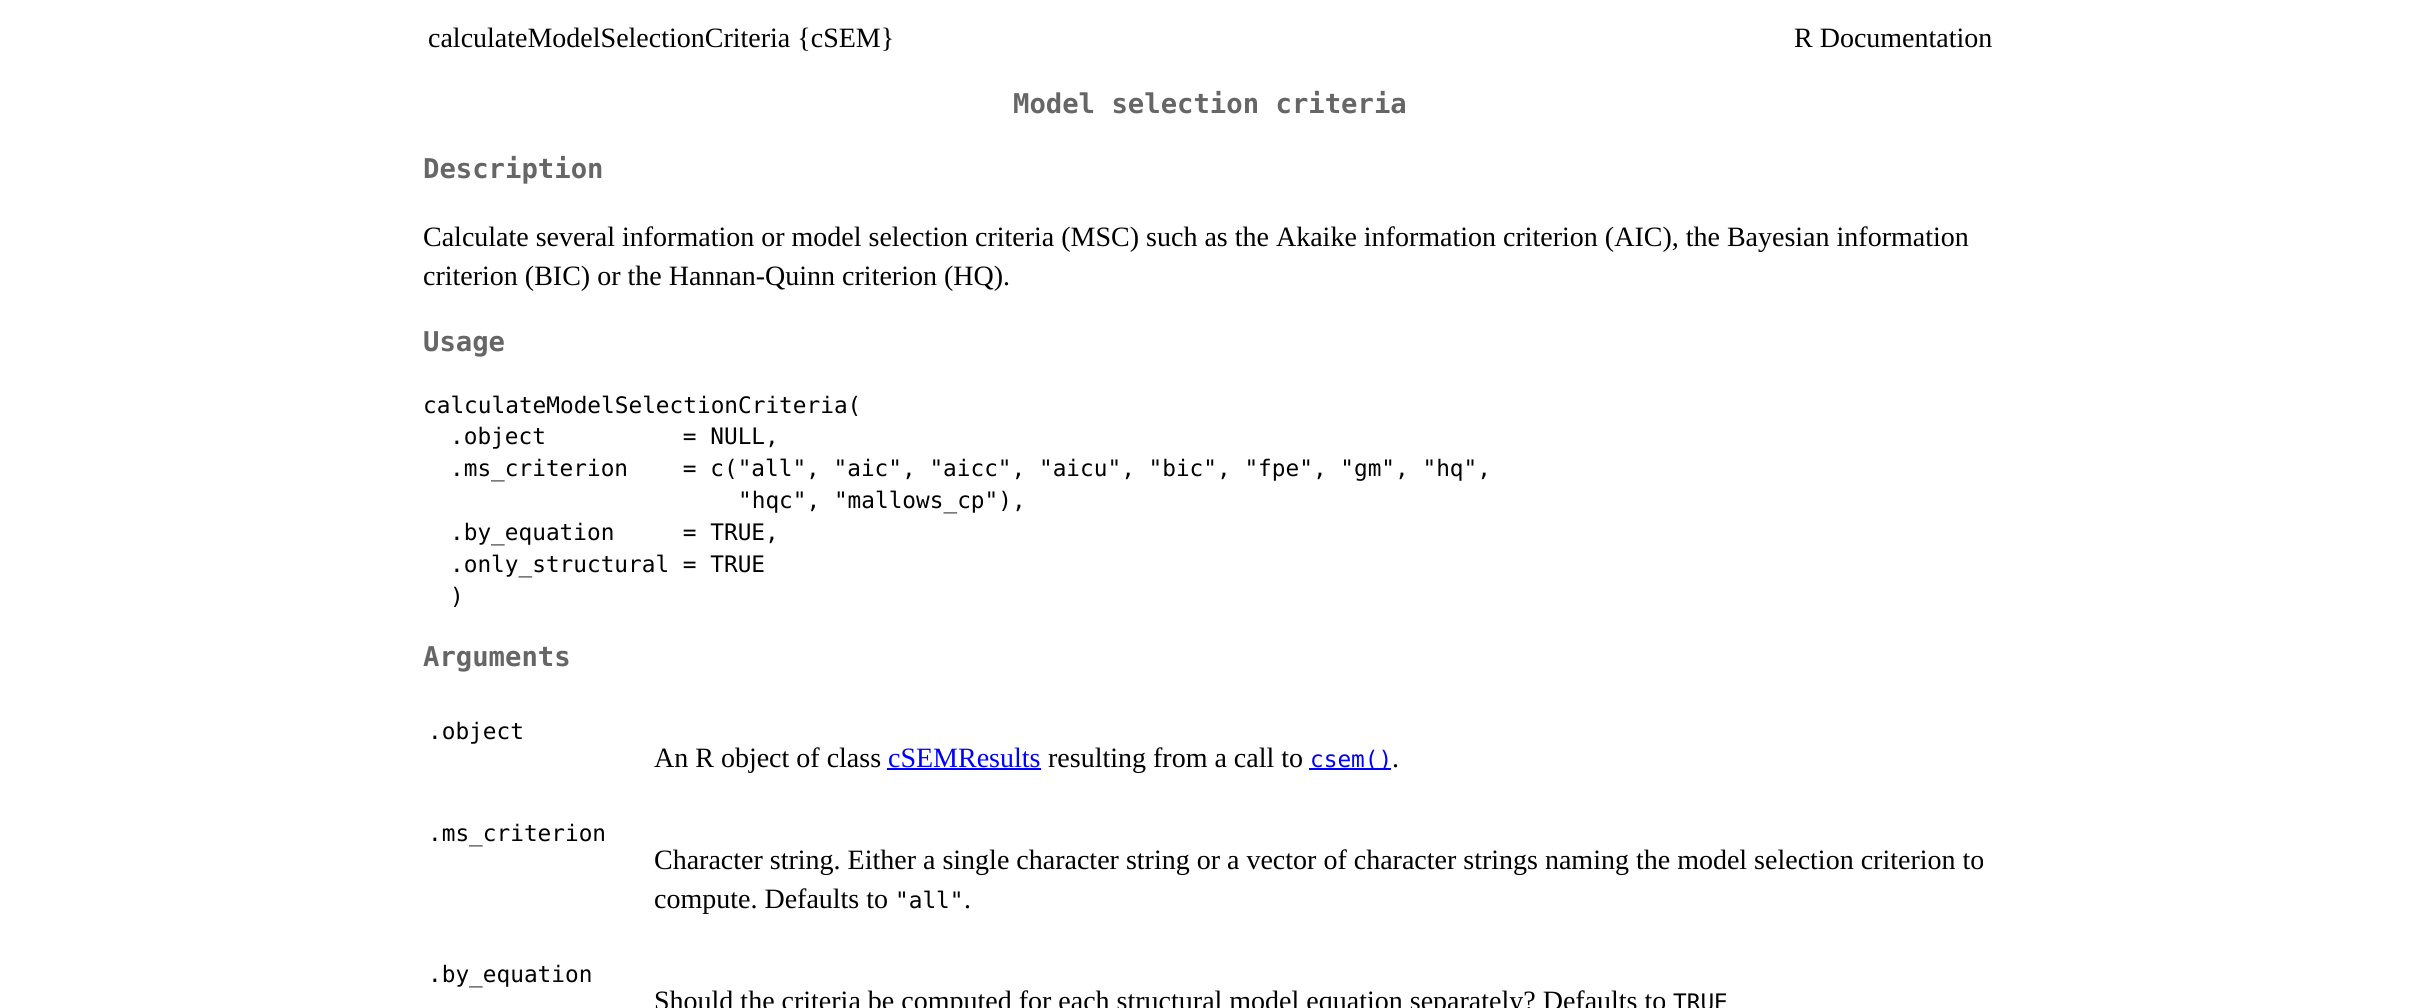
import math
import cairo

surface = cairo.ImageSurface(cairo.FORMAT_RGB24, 2419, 1008)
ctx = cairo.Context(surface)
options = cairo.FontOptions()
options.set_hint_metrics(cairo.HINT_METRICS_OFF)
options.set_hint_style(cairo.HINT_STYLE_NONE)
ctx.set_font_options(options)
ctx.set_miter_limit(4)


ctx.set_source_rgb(1, 1, 1)
ctx.paint()
ctx.select_font_face("Liberation Serif")
ctx.set_font_size(28)
ctx.set_source_rgb(0, 0, 0)
ctx.move_to(428, 47)
ctx.show_text("calculateModelSelectionCriteria {cSEM}")
ctx.move_to(1794, 47)
ctx.show_text("R Documentation")
ctx.select_font_face("DejaVu Sans Mono", cairo.FONT_SLANT_NORMAL, cairo.FONT_WEIGHT_BOLD)
ctx.set_font_size(27.25)
ctx.set_source_rgb(0.4, 0.4, 0.4)
ctx.move_to(1013, 113)
ctx.show_text("Model selection criteria")
ctx.move_to(423, 178)
ctx.show_text("Description")
ctx.select_font_face("Liberation Serif")
ctx.set_font_size(28)
ctx.set_source_rgb(0, 0, 0)
ctx.move_to(423, 246)
ctx.show_text("Calculate several information or model selection criteria (MSC) such as the Akaike information criterion (AIC), the Bayesian information")
ctx.move_to(423, 285)
ctx.show_text("criterion (BIC) or the Hannan-Quinn criterion (HQ).")
ctx.select_font_face("DejaVu Sans Mono", cairo.FONT_SLANT_NORMAL, cairo.FONT_WEIGHT_BOLD)
ctx.set_font_size(27.25)
ctx.set_source_rgb(0.4, 0.4, 0.4)
ctx.move_to(423, 351)
ctx.show_text("Usage")
ctx.select_font_face("DejaVu Sans Mono")
ctx.set_font_size(22.75)
ctx.set_source_rgb(0, 0, 0)
ctx.move_to(423, 413)
ctx.show_text("calculateModelSelectionCriteria(")
ctx.move_to(450, 444)
ctx.show_text(".object          = NULL,")
ctx.move_to(450, 476)
ctx.show_text(".ms_criterion    = c(\"all\", \"aic\", \"aicc\", \"aicu\", \"bic\", \"fpe\", \"gm\", \"hq\",")
ctx.move_to(738, 508)
ctx.show_text("\"hqc\", \"mallows_cp\"),")
ctx.move_to(450, 540)
ctx.show_text(".by_equation     = TRUE,")
ctx.move_to(450, 572)
ctx.show_text(".only_structural = TRUE")
ctx.move_to(450, 604)
ctx.show_text(")")
ctx.select_font_face("DejaVu Sans Mono", cairo.FONT_SLANT_NORMAL, cairo.FONT_WEIGHT_BOLD)
ctx.set_font_size(27.25)
ctx.set_source_rgb(0.4, 0.4, 0.4)
ctx.move_to(423, 666)
ctx.show_text("Arguments")
ctx.select_font_face("DejaVu Sans Mono")
ctx.set_font_size(22.75)
ctx.set_source_rgb(0, 0, 0)
ctx.move_to(428, 739)
ctx.show_text(".object")
ctx.select_font_face("Liberation Serif")
ctx.set_font_size(28)
ctx.move_to(654, 767)
ctx.show_text("An R object of class")
ctx.set_source_rgb(0, 0, 1)
ctx.move_to(888, 767)
ctx.show_text("cSEMResults")
ctx.rectangle(887, 768, 154, 2)
ctx.fill()
ctx.set_source_rgb(0, 0, 0)
ctx.move_to(1048, 767)
ctx.show_text("resulting from a call to")
ctx.set_source_rgb(0, 0, 1)
ctx.rectangle(1309, 768, 82, 2)
ctx.fill()
ctx.select_font_face("DejaVu Sans Mono")
ctx.set_font_size(22.75)
ctx.move_to(1310, 767)
ctx.show_text("csem()")
ctx.select_font_face("Liberation Serif")
ctx.set_font_size(28)
ctx.set_source_rgb(0, 0, 0)
ctx.move_to(1392, 767)
ctx.show_text(".")
ctx.select_font_face("DejaVu Sans Mono")
ctx.set_font_size(22.75)
ctx.move_to(428, 841)
ctx.show_text(".ms_criterion")
ctx.select_font_face("Liberation Serif")
ctx.set_font_size(28)
ctx.move_to(654, 869)
ctx.show_text("Character string. Either a single character string or a vector of character strings naming the model selection criterion to")
ctx.move_to(654, 908)
ctx.show_text("compute. Defaults to")
ctx.select_font_face("DejaVu Sans Mono")
ctx.set_font_size(22.75)
ctx.move_to(895, 908)
ctx.show_text("\"all\"")
ctx.select_font_face("Liberation Serif")
ctx.set_font_size(28)
ctx.move_to(964, 908)
ctx.show_text(".")
ctx.select_font_face("DejaVu Sans Mono")
ctx.set_font_size(22.75)
ctx.move_to(428, 982)
ctx.show_text(".by_equation")
ctx.select_font_face("Liberation Serif")
ctx.set_font_size(28)
ctx.move_to(654, 1010)
ctx.show_text("Should the criteria be computed for each structural model equation separately? Defaults to")
ctx.select_font_face("DejaVu Sans Mono")
ctx.set_font_size(22.75)
ctx.move_to(1673, 1010)
ctx.show_text("TRUE")
surface.write_to_png("page.png")
